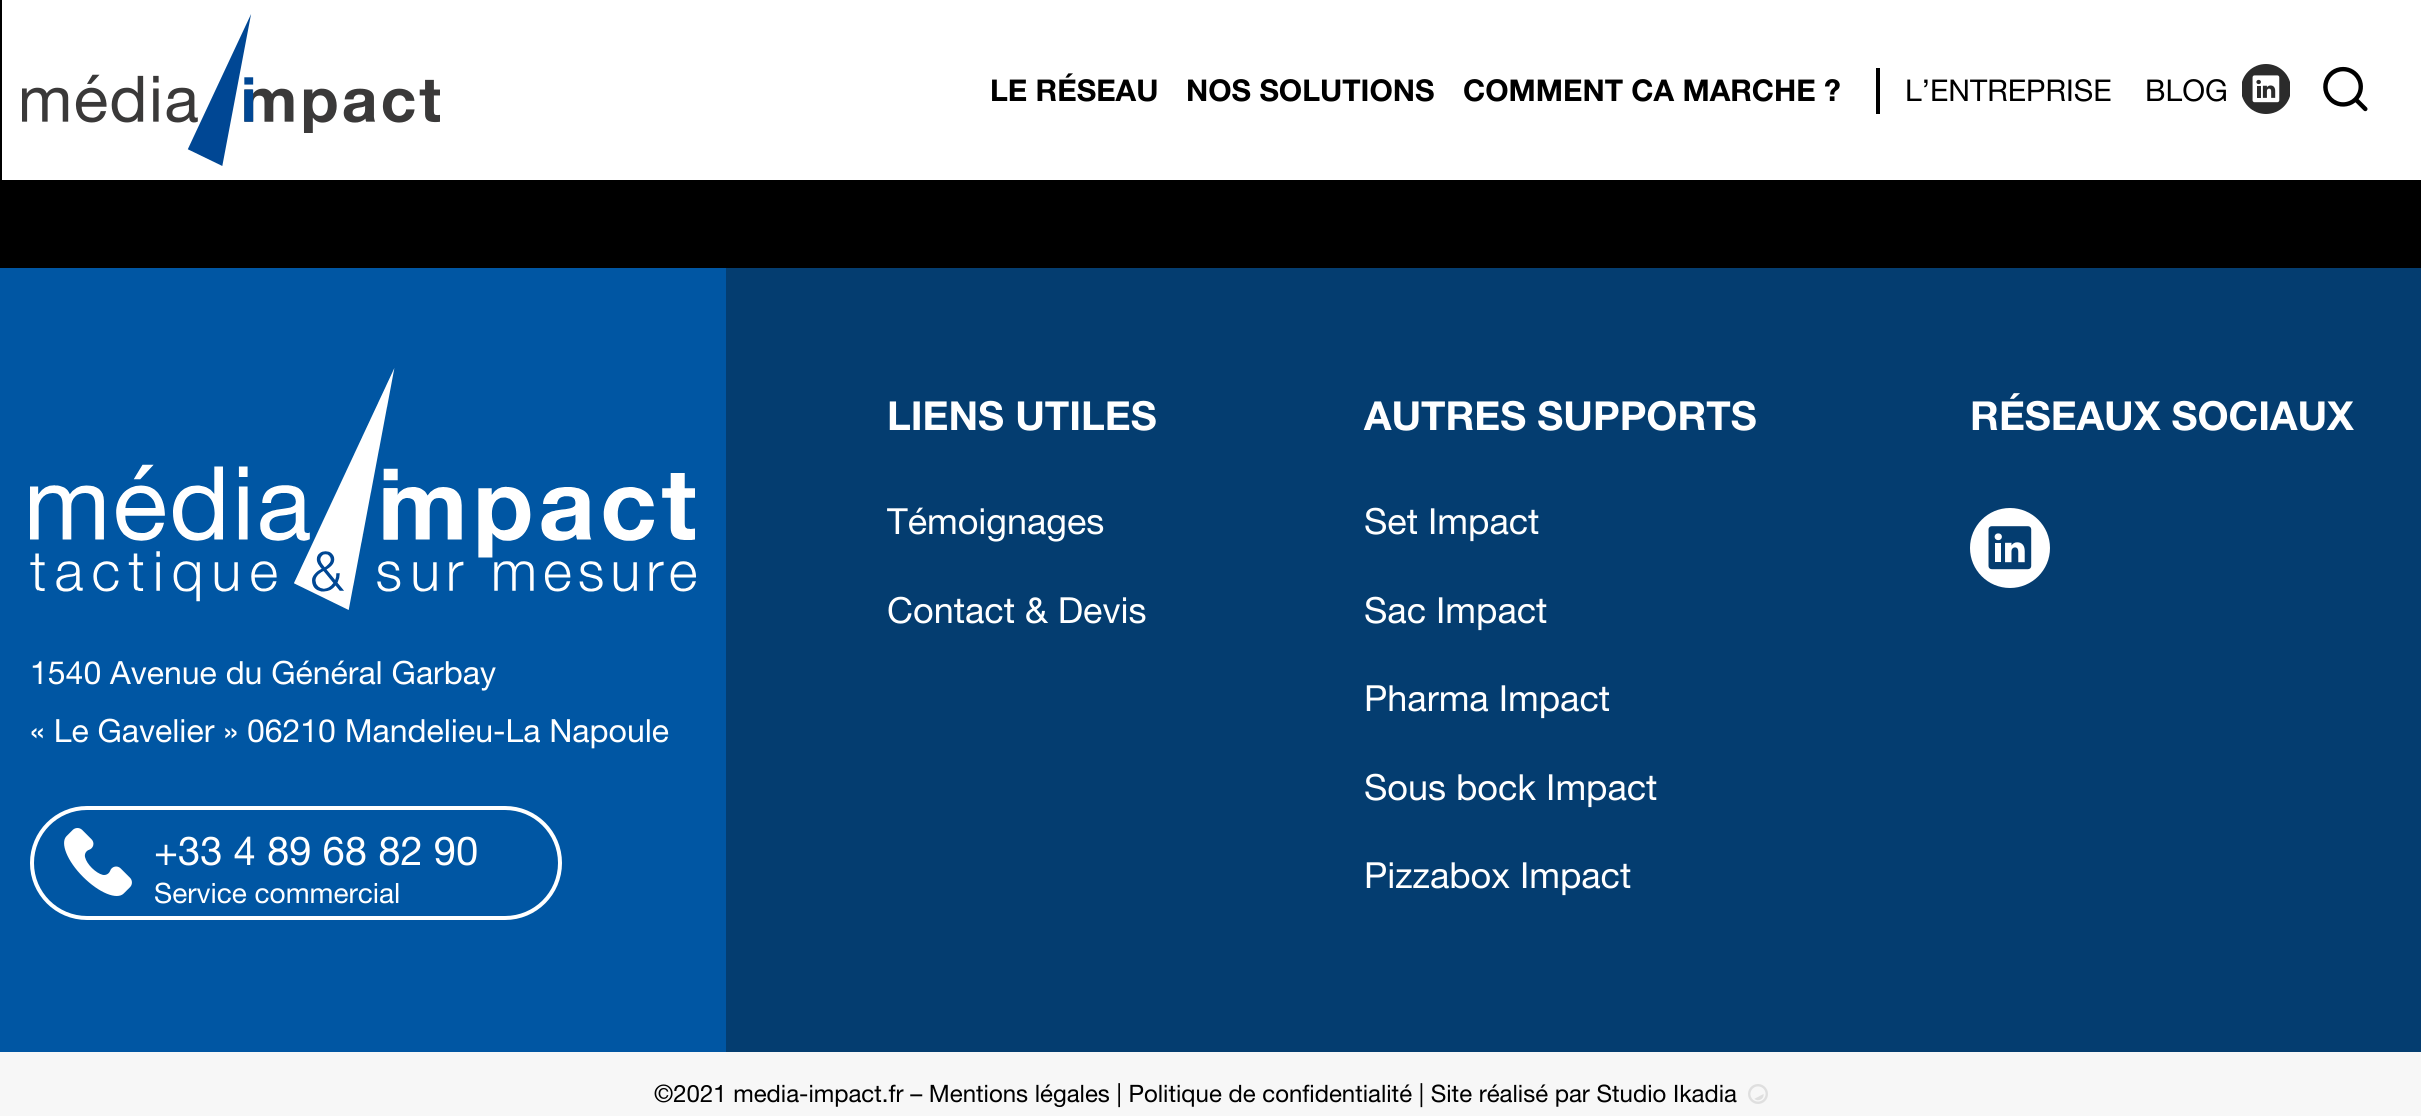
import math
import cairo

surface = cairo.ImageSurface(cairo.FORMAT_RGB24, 2421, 1116)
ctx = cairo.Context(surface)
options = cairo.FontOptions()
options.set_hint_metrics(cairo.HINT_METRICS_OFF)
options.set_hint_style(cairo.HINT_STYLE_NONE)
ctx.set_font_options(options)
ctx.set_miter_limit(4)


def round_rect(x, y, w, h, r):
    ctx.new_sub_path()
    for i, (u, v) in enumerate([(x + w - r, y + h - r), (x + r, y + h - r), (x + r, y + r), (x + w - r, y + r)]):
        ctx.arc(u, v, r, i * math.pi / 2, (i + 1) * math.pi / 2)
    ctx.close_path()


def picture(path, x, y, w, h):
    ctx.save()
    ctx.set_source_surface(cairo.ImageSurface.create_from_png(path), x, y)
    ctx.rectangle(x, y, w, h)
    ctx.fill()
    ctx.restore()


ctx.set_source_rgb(0, 0, 0)
ctx.paint()
ctx.set_source_rgb(1, 1, 1)
ctx.rectangle(2, 0, 2419, 180)
ctx.fill()
picture("img1.png", 22, 14, 418, 152)
ctx.select_font_face("Helvetica Neue", cairo.FONT_SLANT_NORMAL, cairo.FONT_WEIGHT_BOLD)
ctx.set_font_size(30)
ctx.set_source_rgb(0, 0, 0)
ctx.move_to(990, 101)
ctx.show_text("LE RÉSEAU")
ctx.move_to(1186, 101)
ctx.show_text("NOS SOLUTIONS")
ctx.move_to(1463, 101)
ctx.show_text("COMMENT CA MARCHE ?")
ctx.rectangle(1876, 68, 4, 46)
ctx.fill()
ctx.select_font_face("Helvetica Neue")
ctx.move_to(1905, 101)
ctx.show_text("L’ENTREPRISE")
ctx.move_to(2145, 101)
ctx.show_text("BLOG")
picture("img2.png", 2242, 64, 48, 50)
picture("img3.png", 2323, 66, 45, 46)
ctx.set_source_rgb(0, 0.337, 0.639)
ctx.rectangle(0, 268, 726, 784)
ctx.fill()
ctx.set_source_rgb(0.016, 0.239, 0.439)
ctx.rectangle(726, 268, 1695, 784)
ctx.fill()
picture("img4.png", 30, 368, 666, 242)
ctx.set_font_size(32)
ctx.set_source_rgb(1, 1, 1)
ctx.move_to(30, 684)
ctx.show_text("1540 Avenue du Général Garbay")
ctx.move_to(30, 742)
ctx.show_text("« Le Gavelier » 06210 Mandelieu-La Napoule")
round_rect(32, 808, 528, 110, 55)
ctx.set_line_width(4)
ctx.stroke()
picture("img5.png", 64, 828, 68, 68)
ctx.set_font_size(40)
ctx.move_to(154, 865)
ctx.show_text("+33 4 89 68 82 90")
ctx.set_font_size(28)
ctx.move_to(154, 903)
ctx.show_text("Service commercial")
ctx.select_font_face("Helvetica Neue", cairo.FONT_SLANT_NORMAL, cairo.FONT_WEIGHT_BOLD)
ctx.set_font_size(40)
ctx.move_to(887, 430)
ctx.show_text("LIENS UTILES")
ctx.select_font_face("Helvetica Neue")
ctx.set_font_size(36)
ctx.move_to(887, 534)
ctx.show_text("Témoignages")
ctx.move_to(887, 623)
ctx.show_text("Contact & Devis")
ctx.select_font_face("Helvetica Neue", cairo.FONT_SLANT_NORMAL, cairo.FONT_WEIGHT_BOLD)
ctx.set_font_size(40)
ctx.move_to(1364, 430)
ctx.show_text("AUTRES SUPPORTS")
ctx.select_font_face("Helvetica Neue")
ctx.set_font_size(36)
ctx.move_to(1364, 534)
ctx.show_text("Set Impact")
ctx.move_to(1364, 623)
ctx.show_text("Sac Impact")
ctx.move_to(1364, 711)
ctx.show_text("Pharma Impact")
ctx.move_to(1364, 800)
ctx.show_text("Sous bock Impact")
ctx.move_to(1364, 888)
ctx.show_text("Pizzabox Impact")
ctx.select_font_face("Helvetica Neue", cairo.FONT_SLANT_NORMAL, cairo.FONT_WEIGHT_BOLD)
ctx.set_font_size(40)
ctx.move_to(1970, 430)
ctx.show_text("RÉSEAUX SOCIAUX")
picture("img6.png", 1970, 508, 80, 80)
ctx.set_source_rgb(0.965, 0.965, 0.965)
ctx.rectangle(0, 1052, 2421, 64)
ctx.fill()
ctx.select_font_face("Helvetica Neue")
ctx.set_font_size(24)
ctx.set_source_rgb(0, 0, 0)
ctx.move_to(654, 1102)
ctx.show_text("©2021 media-impact.fr – Mentions légales | Politique de confidentialité | Site réalisé par Studio Ikadia")
picture("img7.png", 1748, 1084, 20, 20)
surface.write_to_png("page.png")
